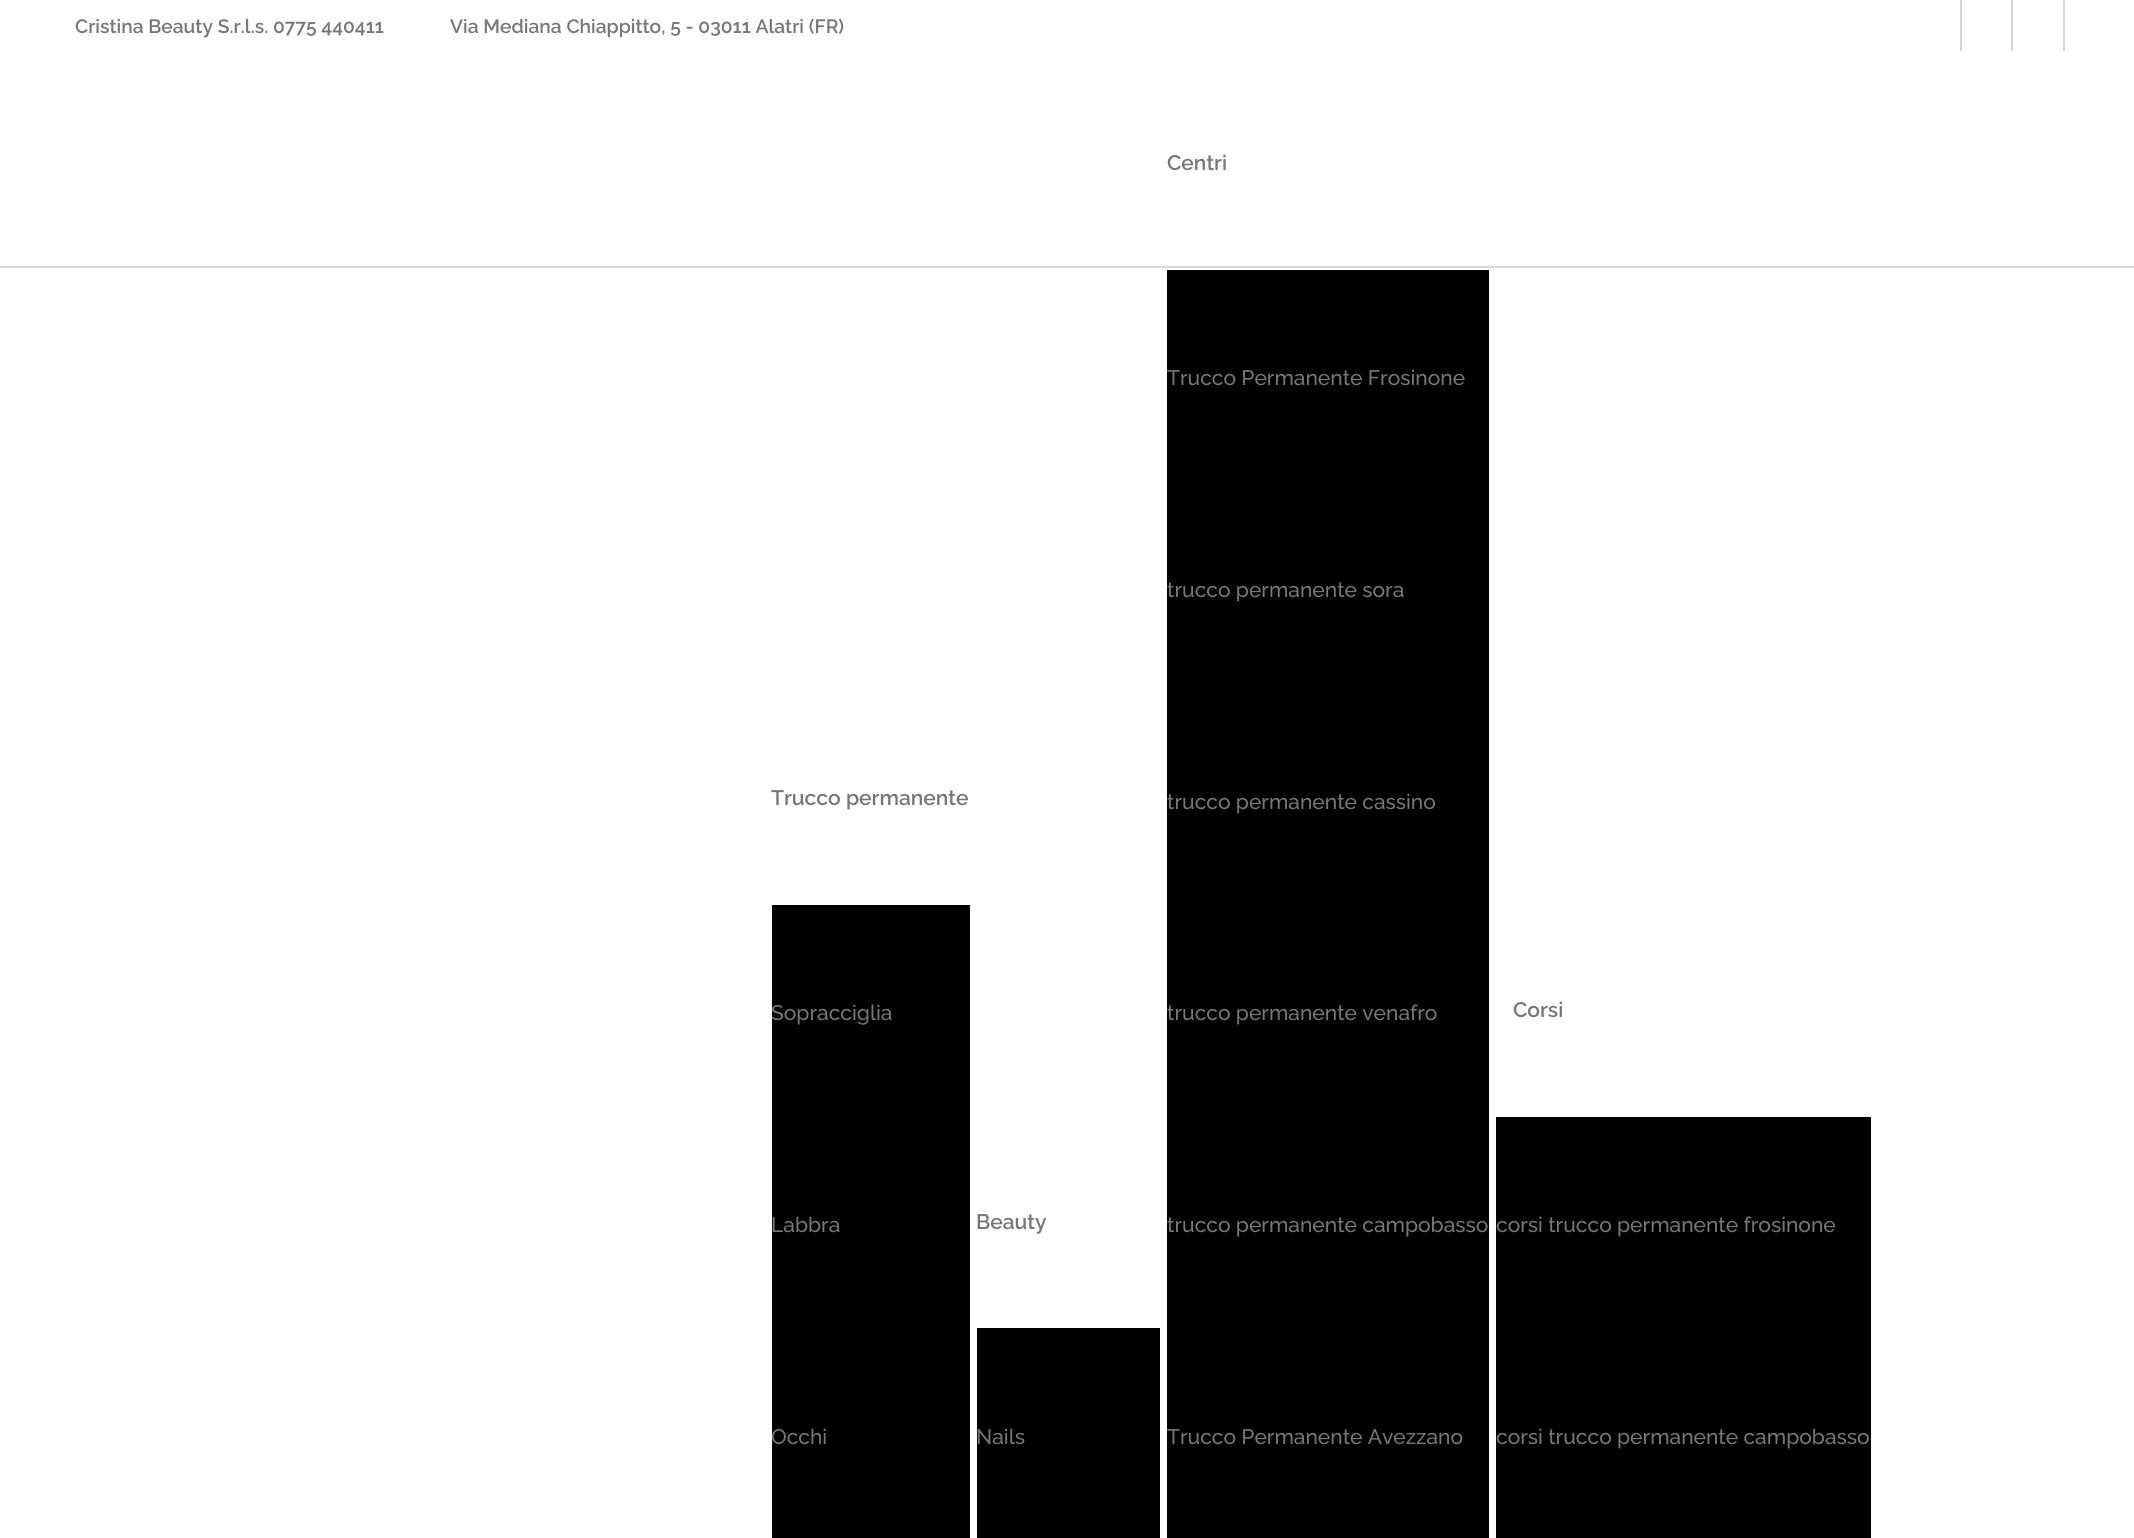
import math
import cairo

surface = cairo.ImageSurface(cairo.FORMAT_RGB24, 2134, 1538)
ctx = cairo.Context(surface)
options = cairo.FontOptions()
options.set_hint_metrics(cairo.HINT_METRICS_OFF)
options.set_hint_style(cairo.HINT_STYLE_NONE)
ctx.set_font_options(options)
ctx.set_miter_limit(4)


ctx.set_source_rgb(1, 1, 1)
ctx.paint()
ctx.set_source_rgb(0.839, 0.839, 0.839)
ctx.rectangle(0, 266, 2134, 2)
ctx.fill()
ctx.select_font_face("Raleway SemiBold")
ctx.set_font_size(19.25)
ctx.set_source_rgb(0.467, 0.467, 0.467)
ctx.move_to(75, 33)
ctx.show_text("Cristina Beauty S.r.l.s. 0775 440411")
ctx.move_to(450, 33)
ctx.show_text("Via Mediana Chiappitto, 5 - 03011 Alatri (FR)")
ctx.set_source_rgb(0.839, 0.839, 0.839)
ctx.rectangle(2011, 0, 2, 51)
ctx.fill()
ctx.rectangle(1960, 0, 2, 51)
ctx.fill()
ctx.rectangle(2063, 0, 2, 51)
ctx.fill()
ctx.set_font_size(21)
ctx.set_source_rgb(0.467, 0.467, 0.467)
ctx.move_to(771, 805)
ctx.show_text("Trucco permanente")
ctx.set_source_rgb(0, 0, 0)
ctx.rectangle(772, 905, 198, 633)
ctx.fill()
ctx.select_font_face("Raleway Medium")
ctx.set_source_rgb(0.467, 0.467, 0.467)
ctx.move_to(771, 1020)
ctx.show_text("Sopracciglia")
ctx.move_to(771, 1232)
ctx.show_text("Labbra")
ctx.move_to(771, 1444)
ctx.show_text("Occhi")
ctx.select_font_face("Raleway SemiBold")
ctx.move_to(976, 1229)
ctx.show_text("Beauty")
ctx.set_source_rgb(0, 0, 0)
ctx.rectangle(977, 1328, 183, 210)
ctx.fill()
ctx.select_font_face("Raleway Medium")
ctx.set_source_rgb(0.467, 0.467, 0.467)
ctx.move_to(976, 1444)
ctx.show_text("Nails")
ctx.select_font_face("Raleway SemiBold")
ctx.move_to(1167, 170)
ctx.show_text("Centri")
ctx.set_source_rgb(0, 0, 0)
ctx.rectangle(1167, 270, 322, 1268)
ctx.fill()
ctx.select_font_face("Raleway Medium")
ctx.set_source_rgb(0.467, 0.467, 0.467)
ctx.move_to(1167, 385)
ctx.show_text("Trucco Permanente Frosinone")
ctx.move_to(1167, 597)
ctx.show_text("trucco permanente sora")
ctx.move_to(1167, 809)
ctx.show_text("trucco permanente cassino")
ctx.move_to(1167, 1020)
ctx.show_text("trucco permanente venafro")
ctx.move_to(1167, 1232)
ctx.show_text("trucco permanente campobasso")
ctx.move_to(1167, 1444)
ctx.show_text("Trucco Permanente Avezzano")
ctx.select_font_face("Raleway SemiBold")
ctx.move_to(1513, 1017)
ctx.show_text("Corsi")
ctx.set_source_rgb(0, 0, 0)
ctx.rectangle(1496, 1117, 375, 421)
ctx.fill()
ctx.select_font_face("Raleway Medium")
ctx.set_source_rgb(0.467, 0.467, 0.467)
ctx.move_to(1496, 1232)
ctx.show_text("corsi trucco permanente frosinone")
ctx.move_to(1496, 1444)
ctx.show_text("corsi trucco permanente campobasso")
surface.write_to_png("page.png")
